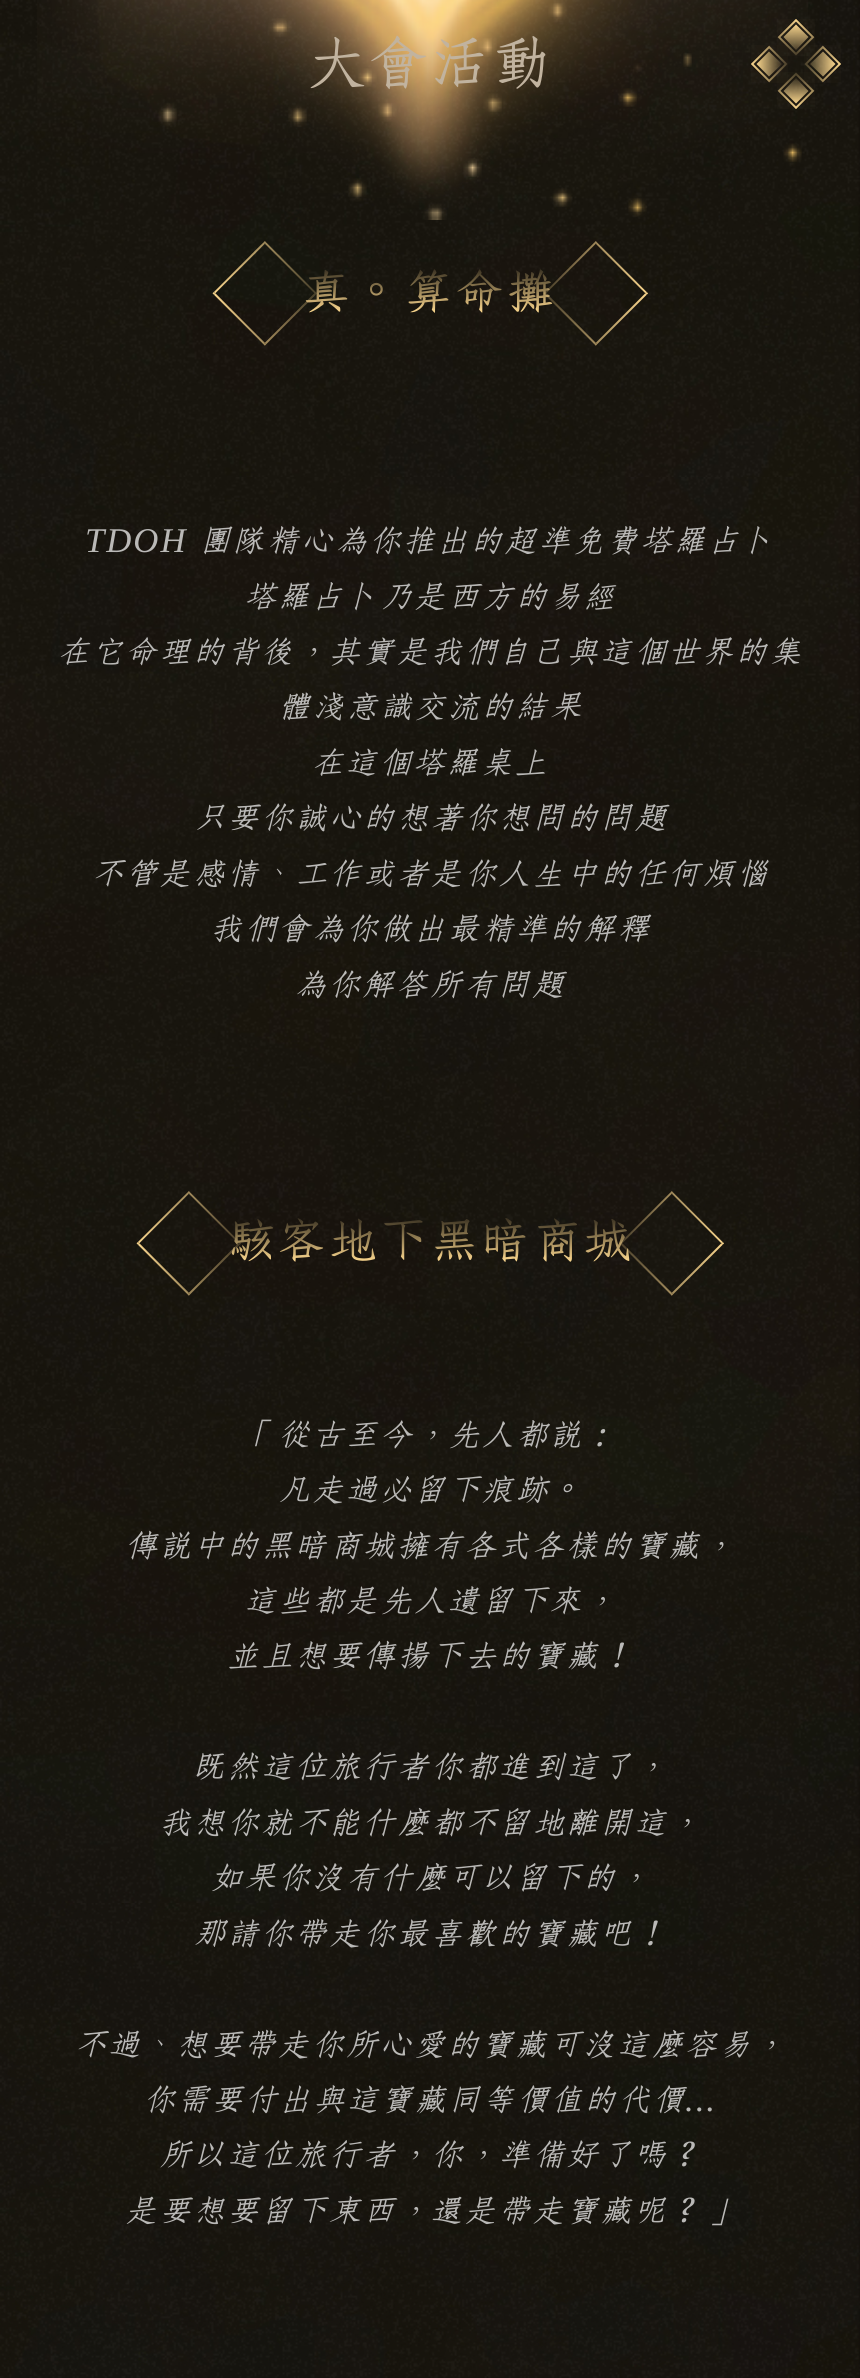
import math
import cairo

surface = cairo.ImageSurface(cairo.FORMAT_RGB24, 860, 2378)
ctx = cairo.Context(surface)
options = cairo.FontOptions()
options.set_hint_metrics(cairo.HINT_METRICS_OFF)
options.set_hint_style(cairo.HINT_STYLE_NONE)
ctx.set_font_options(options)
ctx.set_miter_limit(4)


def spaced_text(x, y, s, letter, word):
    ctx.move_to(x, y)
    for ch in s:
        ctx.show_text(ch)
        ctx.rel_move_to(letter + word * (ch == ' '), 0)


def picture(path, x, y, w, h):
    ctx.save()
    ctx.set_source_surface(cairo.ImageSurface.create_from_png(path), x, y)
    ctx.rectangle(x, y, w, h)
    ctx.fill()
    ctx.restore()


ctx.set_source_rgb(0.067, 0.047, 0.039)
ctx.paint()
picture("img1.png", 0, 0, 860, 2378)
picture("img2.png", 37, 0, 771, 220)
ctx.select_font_face("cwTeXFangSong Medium")
ctx.set_font_size(64)
ctx.set_source_rgb(0.757, 0.702, 0.624)
spaced_text(308, 84, "大會活動", 2, 0)
picture("img3.png", 777, 19, 38, 37)
gradient = cairo.LinearGradient(796, 24, 796, 50)
gradient.add_color_stop_rgba(0, 0.98, 0.839, 0.553, 1)
gradient.add_color_stop_rgba(1, 0.98, 0.839, 0.557, 0.2)
ctx.set_source(gradient)
ctx.new_path()
ctx.move_to(796, 24.5)
ctx.line_to(808.5, 37)
ctx.line_to(796, 50)
ctx.line_to(783.5, 37)
ctx.close_path()
ctx.fill()
picture("img4.png", 751, 45, 37, 38)
gradient = cairo.LinearGradient(756, 64, 782, 64)
gradient.add_color_stop_rgba(0, 0.98, 0.839, 0.553, 1)
gradient.add_color_stop_rgba(1, 0.98, 0.839, 0.557, 0.1)
ctx.set_source(gradient)
ctx.new_path()
ctx.move_to(769, 51.5)
ctx.line_to(782, 64)
ctx.line_to(769, 76.5)
ctx.line_to(756.5, 64)
ctx.close_path()
ctx.fill()
picture("img5.png", 804, 45, 37, 38)
gradient = cairo.LinearGradient(836, 64, 810, 64)
gradient.add_color_stop_rgba(0, 0.98, 0.839, 0.553, 1)
gradient.add_color_stop_rgba(1, 0.98, 0.839, 0.557, 0.2)
ctx.set_source(gradient)
ctx.new_path()
ctx.move_to(823, 51.5)
ctx.line_to(835.5, 64)
ctx.line_to(823, 76.5)
ctx.line_to(810, 64)
ctx.close_path()
ctx.fill()
picture("img6.png", 777, 72, 38, 37)
gradient = cairo.LinearGradient(796, 104, 796, 78)
gradient.add_color_stop_rgba(0, 0.98, 0.839, 0.553, 1)
gradient.add_color_stop_rgba(1, 0.98, 0.839, 0.557, 0.1)
ctx.set_source(gradient)
ctx.new_path()
ctx.move_to(796, 78)
ctx.line_to(808.5, 91)
ctx.line_to(796, 103.5)
ctx.line_to(783.5, 91)
ctx.close_path()
ctx.fill()
picture("img7.png", 212, 241, 105, 105)
ctx.set_font_size(53.25)
gradient = cairo.LinearGradient(430, 267, 430, 320)
gradient.add_color_stop_rgba(0, 0.188, 0.161, 0.11, 1)
gradient.add_color_stop_rgba(0.85, 0.98, 0.839, 0.553, 1)
gradient.add_color_stop_rgba(1, 0.188, 0.161, 0.11, 1)
ctx.set_source(gradient)
spaced_text(302, 309, "真。算命攤", 2, 0)
picture("img8.png", 543, 241, 105, 105)
ctx.select_font_face("Liberation Serif", cairo.FONT_SLANT_ITALIC)
ctx.set_font_size(34.7)
ctx.set_source_rgb(0.729, 0.725, 0.718)
spaced_text(85, 552, "TDOH", 2, 0)
ctx.select_font_face("cwTeXFangSong Medium", cairo.FONT_SLANT_ITALIC)
spaced_text(199, 552, "團隊精心為你推出的超準免費塔羅占卜", 2, 0)
spaced_text(244, 608, "塔羅占卜乃是西方的易經", 2, 0)
spaced_text(57, 663, "在它命理的背後，其實是我們自己與這個世界的集", 2, 0)
spaced_text(278, 718, "體淺意識交流的結果", 2, 0)
spaced_text(311, 774, "在這個塔羅桌上", 2, 0)
spaced_text(193, 829, "只要你誠心的想著你想問的問題", 2, 0)
spaced_text(91, 885, "不管是感情、工作或者是你人生中的任何煩惱", 2, 0)
spaced_text(210, 940, "我們會為你做出最精準的解釋", 2, 0)
spaced_text(294, 996, "為你解答所有問題", 2, 0)
picture("img9.png", 136, 1191, 105, 105)
ctx.select_font_face("cwTeXFangSong Medium")
ctx.set_font_size(53.25)
gradient = cairo.LinearGradient(430, 1216, 430, 1269)
gradient.add_color_stop_rgba(0, 0.188, 0.161, 0.11, 1)
gradient.add_color_stop_rgba(0.85, 0.98, 0.839, 0.553, 1)
gradient.add_color_stop_rgba(1, 0.188, 0.161, 0.11, 1)
ctx.set_source(gradient)
spaced_text(226, 1258, "駭客地下黑暗商城", 2, 0)
picture("img10.png", 619, 1191, 105, 105)
ctx.select_font_face("cwTeXFangSong Medium", cairo.FONT_SLANT_ITALIC)
ctx.set_font_size(34.7)
ctx.set_source_rgb(0.729, 0.725, 0.718)
spaced_text(244, 1446, "「從古至今，先人都說：", 2, 0)
spaced_text(278, 1501, "凡走過必留下痕跡。", 2, 0)
spaced_text(125, 1557, "傳說中的黑暗商城擁有各式各樣的寶藏，", 2, 0)
spaced_text(244, 1612, "這些都是先人遺留下來，", 2, 0)
spaced_text(227, 1667, "並且想要傳揚下去的寶藏！", 2, 0)
spaced_text(193, 1778, "既然這位旅行者你都進到這了，", 2, 0)
spaced_text(159, 1834, "我想你就不能什麼都不留地離開這，", 2, 0)
spaced_text(210, 1889, "如果你沒有什麼可以留下的，", 2, 0)
spaced_text(193, 1945, "那請你帶走你最喜歡的寶藏吧！", 2, 0)
spaced_text(74, 2056, "不過、想要帶走你所心愛的寶藏可沒這麼容易，", 2, 0)
spaced_text(143, 2111, "你需要付出與這寶藏同等價值的代價", 2, 0)
ctx.select_font_face("Liberation Serif", cairo.FONT_SLANT_ITALIC)
spaced_text(685, 2111, "...", 2, 0)
ctx.select_font_face("cwTeXFangSong Medium", cairo.FONT_SLANT_ITALIC)
spaced_text(159, 2166, "所以這位旅行者，你，準備好了嗎？", 2, 0)
spaced_text(125, 2222, "是要想要留下東西，還是帶走寶藏呢？」", 2, 0)
surface.write_to_png("page.png")
